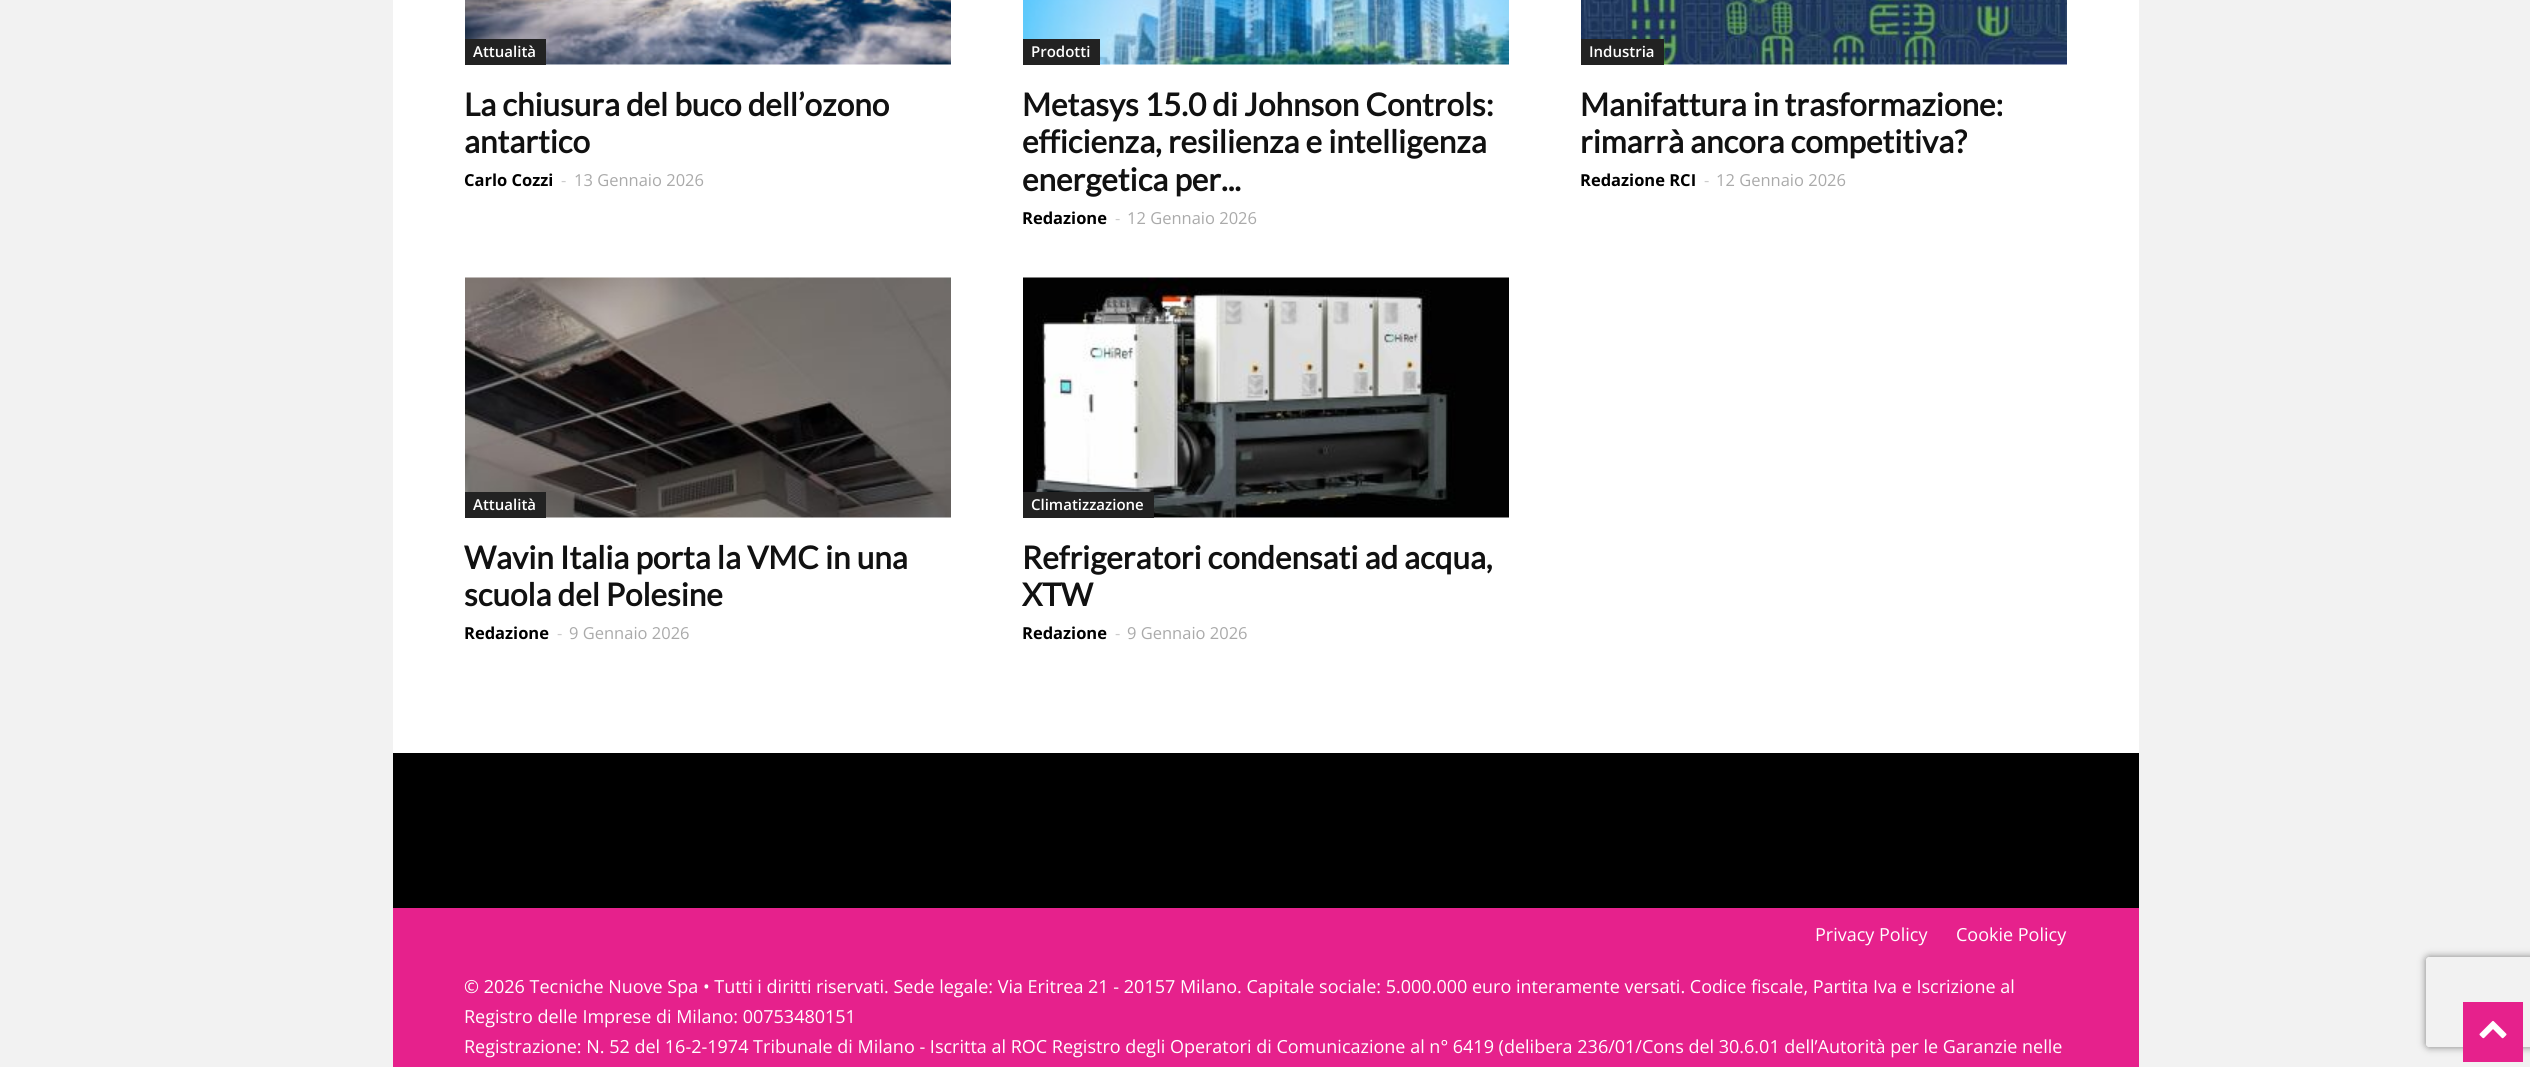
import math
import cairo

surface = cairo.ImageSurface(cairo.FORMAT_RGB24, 2530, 1067)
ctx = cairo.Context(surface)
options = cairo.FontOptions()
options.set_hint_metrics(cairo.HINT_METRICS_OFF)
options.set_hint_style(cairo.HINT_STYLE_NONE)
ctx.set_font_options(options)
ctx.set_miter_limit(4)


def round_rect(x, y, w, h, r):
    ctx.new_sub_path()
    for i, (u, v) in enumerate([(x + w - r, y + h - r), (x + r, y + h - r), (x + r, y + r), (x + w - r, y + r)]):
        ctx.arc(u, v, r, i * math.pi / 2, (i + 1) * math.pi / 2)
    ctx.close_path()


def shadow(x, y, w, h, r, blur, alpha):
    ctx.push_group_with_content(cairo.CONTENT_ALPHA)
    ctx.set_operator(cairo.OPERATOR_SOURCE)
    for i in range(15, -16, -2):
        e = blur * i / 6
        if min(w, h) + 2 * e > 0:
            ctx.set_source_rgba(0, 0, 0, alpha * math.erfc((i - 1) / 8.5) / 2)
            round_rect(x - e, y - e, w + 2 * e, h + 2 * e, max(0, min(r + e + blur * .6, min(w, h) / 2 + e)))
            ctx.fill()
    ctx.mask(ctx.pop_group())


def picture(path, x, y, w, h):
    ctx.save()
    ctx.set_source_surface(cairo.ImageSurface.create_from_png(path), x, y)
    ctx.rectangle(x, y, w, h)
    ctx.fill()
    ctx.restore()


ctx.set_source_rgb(0.949, 0.949, 0.949)
ctx.paint()
ctx.set_source_rgb(1, 1, 1)
ctx.rectangle(393, 0, 1746, 753)
ctx.fill()
picture("img1.png", 465, 0, 486, 65)
ctx.set_source_rgb(0.133, 0.133, 0.133)
ctx.rectangle(465, 39, 81, 26)
ctx.fill()
ctx.select_font_face("Open Sans SemiBold")
ctx.set_font_size(15)
ctx.set_source_rgb(1, 1, 1)
ctx.move_to(473, 57)
ctx.show_text("Attualità")
ctx.select_font_face("Lato", cairo.FONT_SLANT_NORMAL, cairo.FONT_WEIGHT_BOLD)
ctx.set_font_size(31.5)
ctx.set_source_rgb(0.067, 0.067, 0.067)
ctx.move_to(464, 116)
ctx.show_text("La chiusura del buco dell’ozono")
ctx.move_to(464, 153)
ctx.show_text("antartico")
ctx.select_font_face("Open Sans", cairo.FONT_SLANT_NORMAL, cairo.FONT_WEIGHT_BOLD)
ctx.set_font_size(16.5)
ctx.set_source_rgb(0, 0, 0)
ctx.move_to(464, 186)
ctx.show_text("Carlo Cozzi")
ctx.select_font_face("Open Sans")
ctx.set_source_rgb(0.8, 0.8, 0.8)
ctx.move_to(561, 186)
ctx.show_text("-")
ctx.set_source_rgb(0.667, 0.667, 0.667)
ctx.move_to(574, 186)
ctx.show_text("13 Gennaio 2026")
picture("img2.png", 1023, 0, 486, 65)
ctx.set_source_rgb(0.133, 0.133, 0.133)
ctx.rectangle(1023, 39, 77, 26)
ctx.fill()
ctx.select_font_face("Open Sans SemiBold")
ctx.set_font_size(15)
ctx.set_source_rgb(1, 1, 1)
ctx.move_to(1031, 57)
ctx.show_text("Prodotti")
ctx.select_font_face("Lato", cairo.FONT_SLANT_NORMAL, cairo.FONT_WEIGHT_BOLD)
ctx.set_font_size(31.5)
ctx.set_source_rgb(0.067, 0.067, 0.067)
ctx.move_to(1022, 116)
ctx.show_text("Metasys 15.0 di Johnson Controls:")
ctx.move_to(1022, 153)
ctx.show_text("efficienza, resilienza e intelligenza")
ctx.move_to(1022, 191)
ctx.show_text("energetica per...")
ctx.select_font_face("Open Sans", cairo.FONT_SLANT_NORMAL, cairo.FONT_WEIGHT_BOLD)
ctx.set_font_size(16.5)
ctx.set_source_rgb(0, 0, 0)
ctx.move_to(1022, 224)
ctx.show_text("Redazione")
ctx.select_font_face("Open Sans")
ctx.set_source_rgb(0.8, 0.8, 0.8)
ctx.move_to(1115, 224)
ctx.show_text("-")
ctx.set_source_rgb(0.667, 0.667, 0.667)
ctx.move_to(1127, 224)
ctx.show_text("12 Gennaio 2026")
picture("img3.png", 1581, 0, 486, 65)
ctx.set_source_rgb(0.133, 0.133, 0.133)
ctx.rectangle(1581, 39, 83, 26)
ctx.fill()
ctx.select_font_face("Open Sans SemiBold")
ctx.set_font_size(15)
ctx.set_source_rgb(1, 1, 1)
ctx.move_to(1589, 57)
ctx.show_text("Industria")
ctx.select_font_face("Lato", cairo.FONT_SLANT_NORMAL, cairo.FONT_WEIGHT_BOLD)
ctx.set_font_size(31.5)
ctx.set_source_rgb(0.067, 0.067, 0.067)
ctx.move_to(1580, 116)
ctx.show_text("Manifattura in trasformazione:")
ctx.move_to(1580, 153)
ctx.show_text("rimarrà ancora competitiva?")
ctx.select_font_face("Open Sans", cairo.FONT_SLANT_NORMAL, cairo.FONT_WEIGHT_BOLD)
ctx.set_font_size(16.5)
ctx.set_source_rgb(0, 0, 0)
ctx.move_to(1580, 186)
ctx.show_text("Redazione RCI")
ctx.select_font_face("Open Sans")
ctx.set_source_rgb(0.8, 0.8, 0.8)
ctx.move_to(1704, 186)
ctx.show_text("-")
ctx.set_source_rgb(0.667, 0.667, 0.667)
ctx.move_to(1716, 186)
ctx.show_text("12 Gennaio 2026")
picture("img4.png", 465, 277, 486, 241)
ctx.set_source_rgb(0.133, 0.133, 0.133)
ctx.rectangle(465, 492, 81, 26)
ctx.fill()
ctx.select_font_face("Open Sans SemiBold")
ctx.set_font_size(15)
ctx.set_source_rgb(1, 1, 1)
ctx.move_to(473, 510)
ctx.show_text("Attualità")
ctx.select_font_face("Lato", cairo.FONT_SLANT_NORMAL, cairo.FONT_WEIGHT_BOLD)
ctx.set_font_size(31.5)
ctx.set_source_rgb(0.067, 0.067, 0.067)
ctx.move_to(464, 569)
ctx.show_text("Wavin Italia porta la VMC in una")
ctx.move_to(464, 606)
ctx.show_text("scuola del Polesine")
ctx.select_font_face("Open Sans", cairo.FONT_SLANT_NORMAL, cairo.FONT_WEIGHT_BOLD)
ctx.set_font_size(16.5)
ctx.set_source_rgb(0, 0, 0)
ctx.move_to(464, 639)
ctx.show_text("Redazione")
ctx.select_font_face("Open Sans")
ctx.set_source_rgb(0.8, 0.8, 0.8)
ctx.move_to(557, 639)
ctx.show_text("-")
ctx.set_source_rgb(0.667, 0.667, 0.667)
ctx.move_to(569, 639)
ctx.show_text("9 Gennaio 2026")
picture("img5.png", 1023, 277, 486, 241)
ctx.set_source_rgb(0.133, 0.133, 0.133)
ctx.rectangle(1023, 492, 131, 26)
ctx.fill()
ctx.select_font_face("Open Sans SemiBold")
ctx.set_font_size(15)
ctx.set_source_rgb(1, 1, 1)
ctx.move_to(1031, 510)
ctx.show_text("Climatizzazione")
ctx.select_font_face("Lato", cairo.FONT_SLANT_NORMAL, cairo.FONT_WEIGHT_BOLD)
ctx.set_font_size(31.5)
ctx.set_source_rgb(0.067, 0.067, 0.067)
ctx.move_to(1022, 569)
ctx.show_text("Refrigeratori condensati ad acqua,")
ctx.move_to(1022, 606)
ctx.show_text("XTW")
ctx.select_font_face("Open Sans", cairo.FONT_SLANT_NORMAL, cairo.FONT_WEIGHT_BOLD)
ctx.set_font_size(16.5)
ctx.set_source_rgb(0, 0, 0)
ctx.move_to(1022, 639)
ctx.show_text("Redazione")
ctx.select_font_face("Open Sans")
ctx.set_source_rgb(0.8, 0.8, 0.8)
ctx.move_to(1115, 639)
ctx.show_text("-")
ctx.set_source_rgb(0.667, 0.667, 0.667)
ctx.move_to(1127, 639)
ctx.show_text("9 Gennaio 2026")
ctx.set_source_rgb(0, 0, 0)
ctx.rectangle(393, 753, 1746, 155)
ctx.fill()
ctx.set_source_rgb(0.902, 0.129, 0.549)
ctx.rectangle(393, 908, 1746, 159)
ctx.fill()
ctx.set_font_size(18)
ctx.set_source_rgb(1, 1, 1)
ctx.move_to(1815, 941)
ctx.show_text("Privacy Policy")
ctx.move_to(1956, 941)
ctx.show_text("Cookie Policy")
ctx.move_to(464, 993)
ctx.show_text("© 2026 Tecniche Nuove Spa • Tutti i diritti riservati. Sede legale: Via Eritrea 21 - 20157 Milano. Capitale sociale: 5.000.000 euro interamente versati. Codice fiscale, Partita Iva e Iscrizione al")
ctx.move_to(464, 1023)
ctx.show_text("Registro delle Imprese di Milano: 00753480151")
ctx.move_to(464, 1053)
ctx.show_text("Registrazione: N. 52 del 16-2-1974 Tribunale di Milano - Iscritta al ROC Registro degli Operatori di Comunicazione al n° 6419 (delibera 236/01/Cons del 30.6.01 dell’Autorità per le Garanzie nelle")
ctx.save()
ctx.set_fill_rule(cairo.FILL_RULE_EVEN_ODD)
ctx.new_path()
ctx.move_to(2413, 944)
ctx.line_to(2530, 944)
ctx.line_to(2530, 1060)
ctx.line_to(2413, 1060)
ctx.close_path()
ctx.move_to(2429, 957)
ctx.line_to(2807, 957)
ctx.curve_to(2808.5, 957, 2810, 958.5, 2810, 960)
ctx.line_to(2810, 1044)
ctx.curve_to(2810, 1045.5, 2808.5, 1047, 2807, 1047)
ctx.line_to(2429, 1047)
ctx.curve_to(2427.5, 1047, 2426, 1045.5, 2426, 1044)
ctx.line_to(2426, 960)
ctx.curve_to(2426, 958.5, 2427.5, 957, 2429, 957)
ctx.close_path()
ctx.clip()
ctx.set_source_rgb(0.502, 0.502, 0.502)
shadow(2426, 957, 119, 90, 3, 4, 1)
ctx.restore()
ctx.set_source_rgb(0.902, 0.129, 0.549)
ctx.rectangle(2463, 1002, 60, 60)
ctx.fill()
picture("img6.png", 2479, 1020, 28, 19)
surface.write_to_png("page.png")
